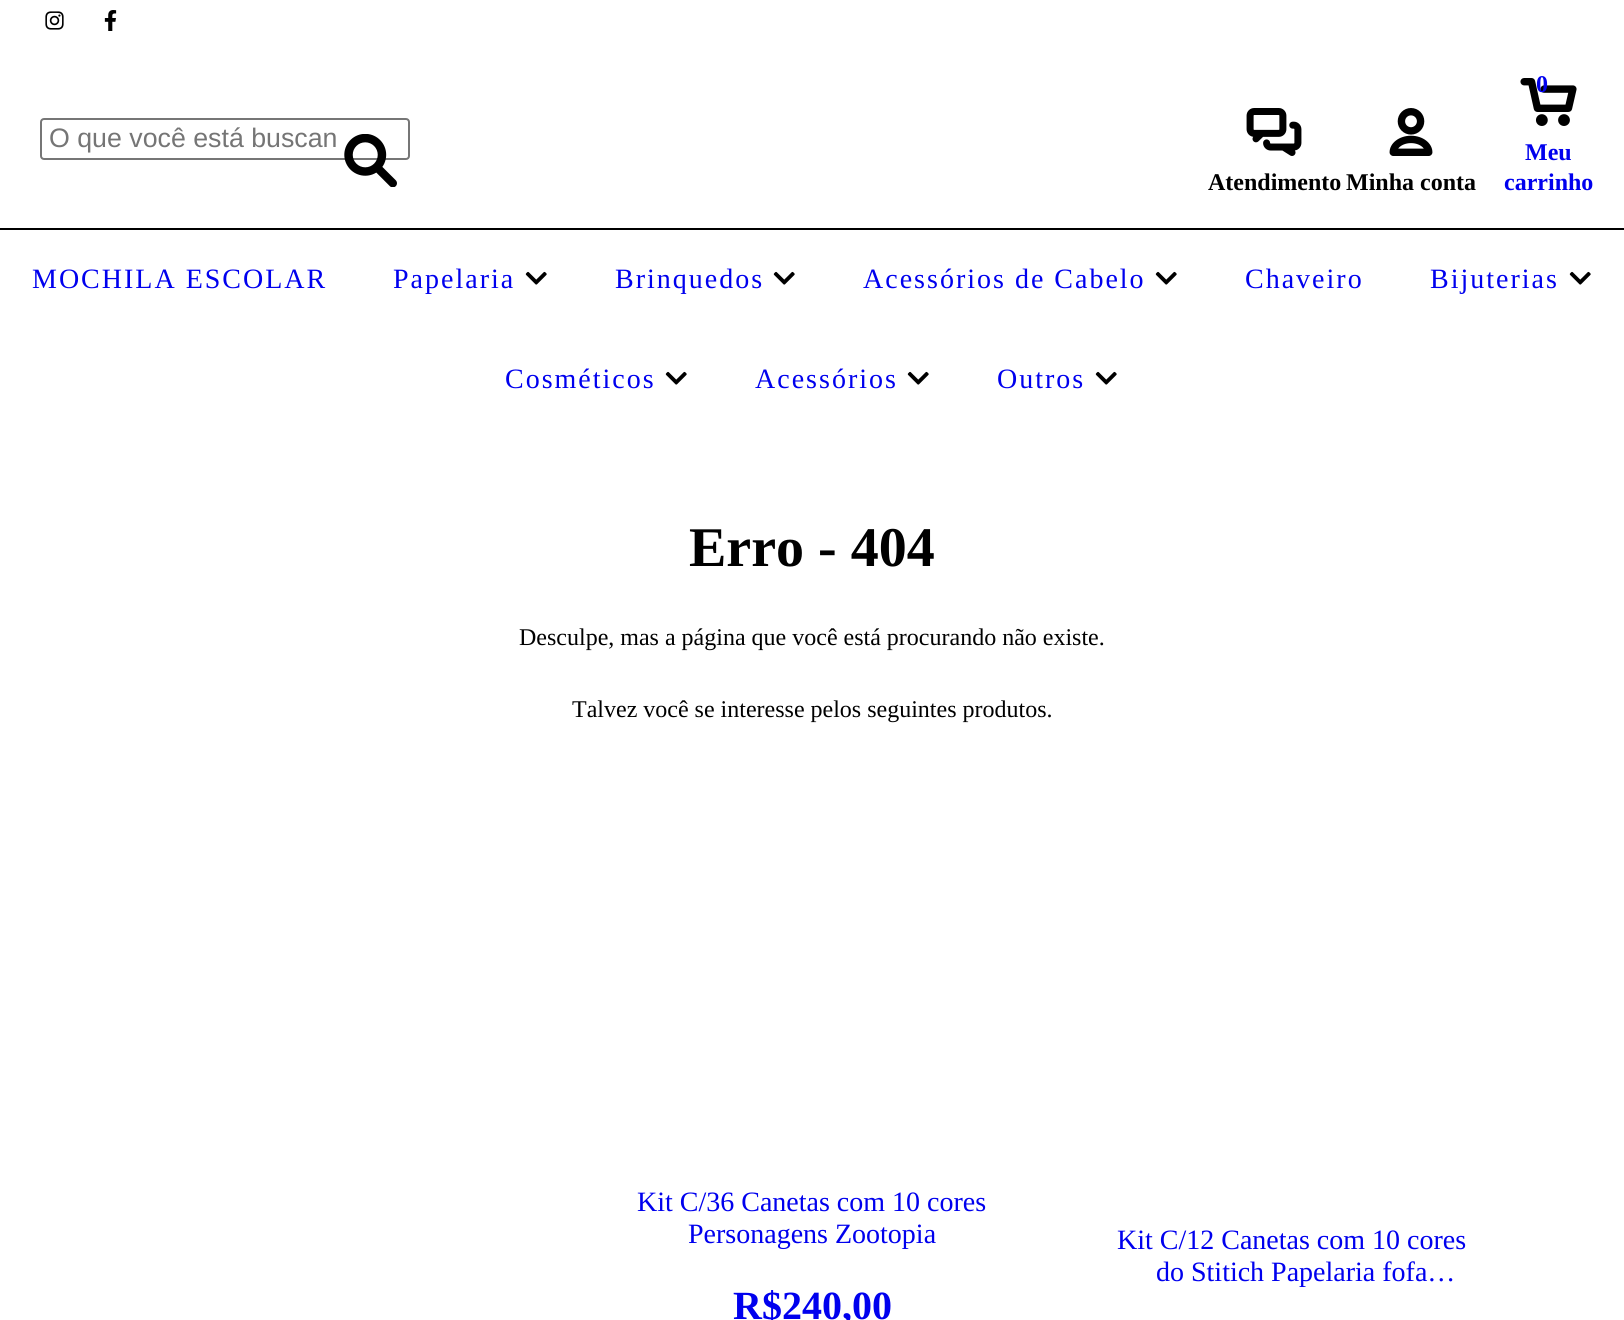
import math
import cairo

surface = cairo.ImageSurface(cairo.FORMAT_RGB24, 1624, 1320)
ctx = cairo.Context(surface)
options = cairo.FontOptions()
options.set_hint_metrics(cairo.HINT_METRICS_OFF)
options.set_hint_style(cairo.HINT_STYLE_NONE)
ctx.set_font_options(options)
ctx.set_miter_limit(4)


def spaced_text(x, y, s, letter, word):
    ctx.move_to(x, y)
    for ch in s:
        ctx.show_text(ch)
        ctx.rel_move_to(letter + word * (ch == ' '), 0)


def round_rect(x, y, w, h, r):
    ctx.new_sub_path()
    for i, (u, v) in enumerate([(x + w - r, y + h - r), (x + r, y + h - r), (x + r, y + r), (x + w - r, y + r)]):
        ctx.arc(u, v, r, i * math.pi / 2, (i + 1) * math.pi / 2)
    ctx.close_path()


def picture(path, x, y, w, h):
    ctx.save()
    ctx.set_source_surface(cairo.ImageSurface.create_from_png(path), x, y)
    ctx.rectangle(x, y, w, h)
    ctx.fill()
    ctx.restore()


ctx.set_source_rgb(1, 1, 1)
ctx.paint()
picture("img1.png", 45, 11, 19, 19)
picture("img2.png", 104, 10, 13, 21)
round_rect(41, 119, 368, 40, 3)
ctx.set_source_rgb(0.463, 0.463, 0.463)
ctx.stroke()
ctx.select_font_face("Liberation Sans")
ctx.set_font_size(26.75)
ctx.set_source_rgb(0.459, 0.459, 0.459)
ctx.move_to(49, 147)
ctx.show_text("O que você está buscan")
picture("img3.png", 344, 134, 53, 53)
picture("img4.png", 1246, 108, 56, 48)
ctx.select_font_face("Liberation Serif", cairo.FONT_SLANT_NORMAL, cairo.FONT_WEIGHT_BOLD)
ctx.set_font_size(24)
ctx.set_source_rgb(0, 0, 0)
ctx.move_to(1208, 190)
ctx.show_text("Atendimento")
picture("img5.png", 1389, 108, 44, 48)
ctx.move_to(1346, 190)
ctx.show_text("Minha conta")
picture("img6.png", 1520, 78, 57, 48)
ctx.set_source_rgb(0, 0, 0.933)
ctx.move_to(1536, 92)
ctx.show_text("0")
ctx.move_to(1525, 160)
ctx.show_text("Meu")
ctx.move_to(1504, 190)
ctx.show_text("carrinho")
ctx.set_source_rgb(0, 0, 0)
ctx.rectangle(0, 228, 1624, 2)
ctx.fill()
ctx.select_font_face("Liberation Serif")
ctx.set_font_size(28)
ctx.set_source_rgb(0, 0, 0.933)
spaced_text(32, 288, "MOCHILA ESCOLAR", 2, 0)
spaced_text(393, 288, "Papelaria", 2, 0)
picture("img7.png", 525, 271, 22, 14)
spaced_text(615, 288, "Brinquedos", 2, 0)
picture("img7.png", 773, 271, 22, 14)
spaced_text(863, 288, "Acessórios de Cabelo", 2, 0)
picture("img7.png", 1155, 271, 22, 14)
spaced_text(1245, 288, "Chaveiro", 2, 0)
spaced_text(1430, 288, "Bijuterias", 2, 0)
picture("img7.png", 1569, 271, 22, 14)
spaced_text(505, 388, "Cosméticos", 2, 0)
picture("img7.png", 665, 371, 22, 14)
spaced_text(755, 388, "Acessórios", 2, 0)
picture("img7.png", 907, 371, 22, 14)
spaced_text(997, 388, "Outros", 2, 0)
picture("img7.png", 1095, 371, 22, 14)
ctx.select_font_face("Liberation Serif", cairo.FONT_SLANT_NORMAL, cairo.FONT_WEIGHT_BOLD)
ctx.set_font_size(56)
ctx.set_source_rgb(0, 0, 0)
ctx.move_to(689, 566)
ctx.show_text("Erro - 404")
ctx.select_font_face("Liberation Serif")
ctx.set_font_size(24)
ctx.move_to(519, 645)
ctx.show_text("Desculpe, mas a página que você está procurando não existe.")
ctx.move_to(572, 717)
ctx.show_text("Talvez você se interesse pelos seguintes produtos.")
ctx.set_font_size(28)
ctx.set_source_rgb(0, 0, 0.933)
ctx.move_to(637, 1211)
ctx.show_text("Kit C/36 Canetas com 10 cores")
ctx.move_to(688, 1243)
ctx.show_text("Personagens Zootopia")
ctx.select_font_face("Liberation Serif", cairo.FONT_SLANT_NORMAL, cairo.FONT_WEIGHT_BOLD)
ctx.set_font_size(40)
ctx.move_to(733, 1319)
ctx.show_text("R$240,00")
ctx.select_font_face("Liberation Serif")
ctx.set_font_size(28)
ctx.move_to(1117, 1249)
ctx.show_text("Kit C/12 Canetas com 10 cores")
ctx.move_to(1156, 1281)
ctx.show_text("do Stitich Papelaria fofa…")
surface.write_to_png("page.png")
